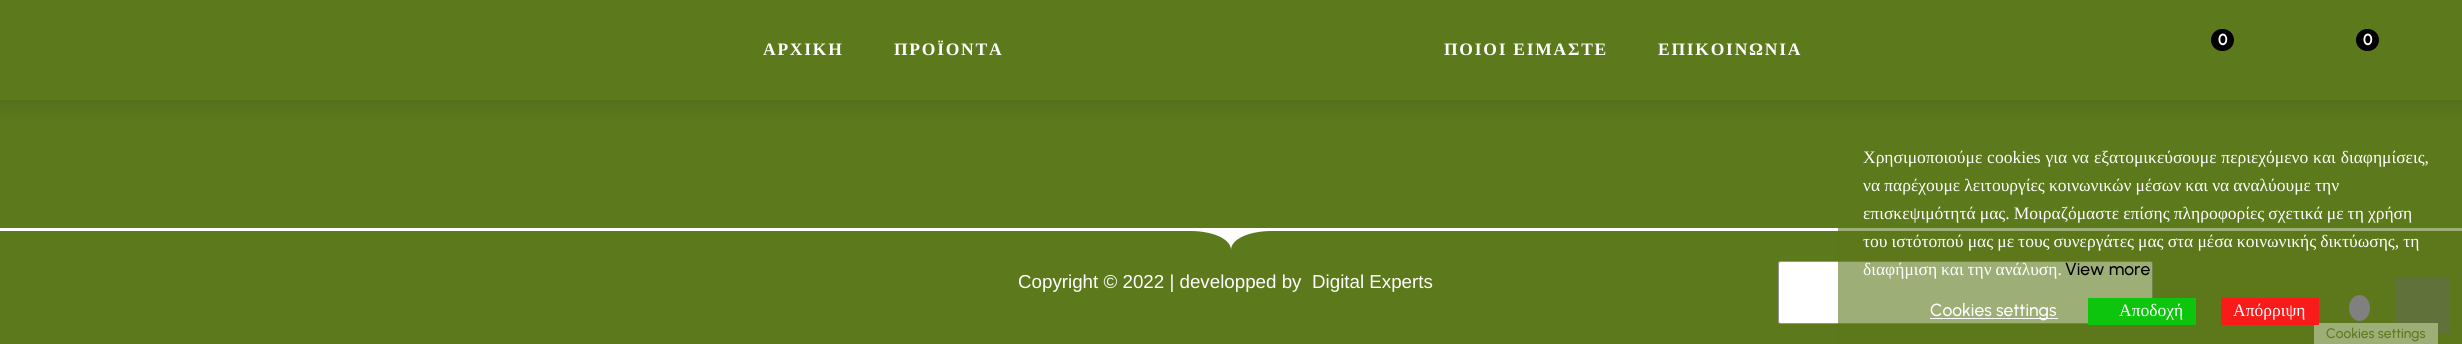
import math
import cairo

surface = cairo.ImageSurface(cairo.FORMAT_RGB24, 2462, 344)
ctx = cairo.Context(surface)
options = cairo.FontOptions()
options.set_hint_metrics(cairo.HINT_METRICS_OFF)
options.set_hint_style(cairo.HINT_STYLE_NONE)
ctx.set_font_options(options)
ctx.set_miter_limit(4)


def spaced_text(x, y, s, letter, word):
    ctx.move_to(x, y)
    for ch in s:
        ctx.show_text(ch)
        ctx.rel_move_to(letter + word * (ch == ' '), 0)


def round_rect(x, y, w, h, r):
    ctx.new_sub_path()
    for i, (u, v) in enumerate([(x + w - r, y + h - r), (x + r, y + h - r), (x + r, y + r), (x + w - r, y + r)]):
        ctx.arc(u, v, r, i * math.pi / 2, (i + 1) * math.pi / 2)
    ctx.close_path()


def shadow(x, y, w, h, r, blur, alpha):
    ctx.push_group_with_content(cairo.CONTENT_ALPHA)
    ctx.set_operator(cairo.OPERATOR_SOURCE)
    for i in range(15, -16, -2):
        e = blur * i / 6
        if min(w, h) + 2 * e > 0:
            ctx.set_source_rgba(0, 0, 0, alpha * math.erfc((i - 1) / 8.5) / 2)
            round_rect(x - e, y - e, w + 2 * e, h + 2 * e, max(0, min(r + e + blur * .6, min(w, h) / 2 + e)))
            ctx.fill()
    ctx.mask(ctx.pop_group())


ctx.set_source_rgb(0.361, 0.475, 0.11)
ctx.paint()
ctx.set_source_rgb(0, 0, 0)
shadow(-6, -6, 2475, 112, 0, 9.5, 0.1)
ctx.set_source_rgb(0.361, 0.475, 0.11)
ctx.rectangle(0, 0, 2462, 100)
ctx.fill()
ctx.select_font_face("Liberation Serif", cairo.FONT_SLANT_NORMAL, cairo.FONT_WEIGHT_BOLD)
ctx.set_font_size(17.5)
ctx.set_source_rgb(1, 1, 1)
spaced_text(763, 55, "ΑΡΧΙΚΗ", 1.75, 0)
spaced_text(894, 55, "ΠΡΟΪΟΝΤΑ", 1.75, 0)
ctx.set_source_rgb(0, 0, 0)
round_rect(2211, 29, 23, 22, 11)
ctx.fill()
ctx.select_font_face("Urbanist", cairo.FONT_SLANT_NORMAL, cairo.FONT_WEIGHT_BOLD)
ctx.set_font_size(16)
ctx.set_source_rgb(1, 1, 1)
ctx.move_to(2218, 45)
ctx.show_text("0")
ctx.set_source_rgb(0, 0, 0)
round_rect(2356, 29, 23, 22, 11)
ctx.fill()
ctx.set_source_rgb(1, 1, 1)
ctx.move_to(2363, 45)
ctx.show_text("0")
ctx.select_font_face("Liberation Serif", cairo.FONT_SLANT_NORMAL, cairo.FONT_WEIGHT_BOLD)
ctx.set_font_size(17.5)
spaced_text(1444, 55, "ΠΟΙΟΙ ΕΙΜΑΣΤΕ", 1.75, 0)
spaced_text(1658, 55, "ΕΠΙΚΟΙΝΩΝΙΑ", 1.75, 0)
ctx.new_path()
ctx.move_to(-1, 228)
ctx.line_to(-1, 231)
ctx.line_to(1190, 231)
ctx.curve_to(1213, 231, 1231, 239, 1231, 250)
ctx.curve_to(1231, 239, 1249, 231, 1272, 231)
ctx.line_to(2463, 231)
ctx.line_to(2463, 228)
ctx.close_path()
ctx.fill()
ctx.select_font_face("Liberation Sans")
ctx.set_font_size(18.75)
ctx.move_to(1018, 288)
ctx.show_text("Copyright © 2022 | developped by")
ctx.move_to(1312, 288)
ctx.show_text("Digital Experts")
round_rect(1778.5, 261.5, 374, 62, 2)
ctx.fill_preserve()
ctx.set_source_rgb(0.58, 0.58, 0.58)
ctx.set_line_width(1)
ctx.stroke()
ctx.set_source_rgb(0.4, 0.4, 0.4)
ctx.rectangle(2395, 278, 55, 55)
ctx.fill()
ctx.set_source_rgb(1, 1, 1)
ctx.rectangle(2314, 323, 124, 21)
ctx.fill()
ctx.select_font_face("Urbanist Medium")
ctx.set_font_size(13.75)
ctx.set_source_rgb(0.361, 0.475, 0.11)
ctx.move_to(2326, 338)
ctx.show_text("Cookies settings")
ctx.set_source_rgba(0.361, 0.475, 0.11, 0.6)
ctx.rectangle(1838, 228, 624, 116)
ctx.fill()
ctx.select_font_face("Liberation Serif")
ctx.set_font_size(17.5)
ctx.set_source_rgb(1, 1, 1)
spaced_text(1863, 163, "Χρησιμοποιούμε cookies για να εξατομικεύσουμε περιεχόμενο και διαφημίσεις,", 0, 0.5)
spaced_text(1863, 191, "να παρέχουμε λειτουργίες κοινωνικών μέσων και να αναλύουμε την", 0, -0.25)
spaced_text(1863, 219, "επισκεψιμότητά μας. Μοιραζόμαστε επίσης πληροφορίες σχετικά με τη χρήση", 0, -0.25)
spaced_text(1863, 247, "του ιστότοπού μας με τους συνεργάτες μας στα μέσα κοινωνικής δικτύωσης, τη", 0, -0.25)
spaced_text(1863, 275, "διαφήμιση και την ανάλυση.", 0, -0.5)
ctx.select_font_face("Urbanist Medium")
ctx.set_source_rgb(0, 0, 0)
ctx.move_to(2065, 275)
ctx.show_text("View more")
ctx.set_source_rgb(1, 1, 1)
ctx.rectangle(1930, 318, 128, 1)
ctx.fill()
ctx.move_to(1930, 316)
ctx.show_text("Cookies settings")
ctx.set_source_rgb(0.055, 0.773, 0.055)
ctx.rectangle(2088, 298, 108, 27)
ctx.fill()
ctx.select_font_face("Liberation Serif")
ctx.set_source_rgb(1, 1, 1)
ctx.move_to(2119, 316)
ctx.show_text("Αποδοχή")
ctx.set_source_rgb(0.976, 0.102, 0.102)
ctx.rectangle(2221, 298, 98, 27)
ctx.fill()
ctx.set_source_rgb(1, 1, 1)
ctx.move_to(2233, 316)
ctx.show_text("Απόρριψη")
ctx.set_source_rgb(0.502, 0.502, 0.502)
ctx.new_path()
ctx.move_to(2359.5, 295)
ctx.curve_to(2365.5, 295, 2370, 301, 2370, 308)
ctx.curve_to(2370, 315, 2365.5, 321, 2359.5, 321)
ctx.curve_to(2353.5, 321, 2349, 315, 2349, 308)
ctx.curve_to(2349, 301, 2353.5, 295, 2359.5, 295)
ctx.close_path()
ctx.fill()
surface.write_to_png("page.png")
